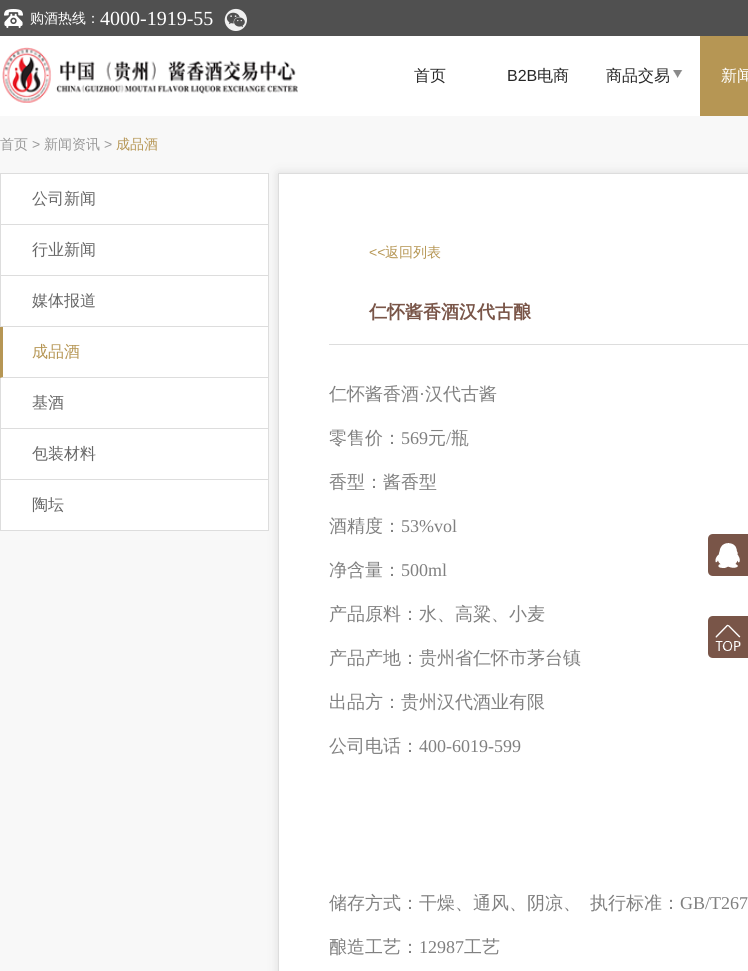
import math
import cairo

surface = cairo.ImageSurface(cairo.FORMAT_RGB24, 748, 971)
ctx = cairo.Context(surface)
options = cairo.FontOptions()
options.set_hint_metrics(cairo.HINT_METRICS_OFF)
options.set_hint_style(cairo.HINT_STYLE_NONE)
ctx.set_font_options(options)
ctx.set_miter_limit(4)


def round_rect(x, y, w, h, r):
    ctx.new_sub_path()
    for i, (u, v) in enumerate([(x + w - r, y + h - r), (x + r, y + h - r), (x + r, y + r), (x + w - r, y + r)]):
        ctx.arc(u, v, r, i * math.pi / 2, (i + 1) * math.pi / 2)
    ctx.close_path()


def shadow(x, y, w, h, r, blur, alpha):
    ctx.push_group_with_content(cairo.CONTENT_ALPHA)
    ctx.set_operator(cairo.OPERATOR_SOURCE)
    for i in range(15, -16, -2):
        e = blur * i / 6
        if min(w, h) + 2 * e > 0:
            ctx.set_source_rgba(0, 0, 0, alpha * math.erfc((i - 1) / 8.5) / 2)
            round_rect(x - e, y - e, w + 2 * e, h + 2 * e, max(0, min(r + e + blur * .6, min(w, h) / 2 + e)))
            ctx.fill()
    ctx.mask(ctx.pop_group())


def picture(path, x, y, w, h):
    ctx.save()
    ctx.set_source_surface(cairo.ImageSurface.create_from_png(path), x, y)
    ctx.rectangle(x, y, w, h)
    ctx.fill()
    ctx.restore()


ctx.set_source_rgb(0.969, 0.969, 0.969)
ctx.paint()
ctx.set_source_rgb(0.314, 0.314, 0.314)
ctx.rectangle(0, 0, 748, 36)
ctx.fill()
picture("img1.png", 4, 9, 19, 19)
ctx.select_font_face("WenQuanYi Zen Hei Medium")
ctx.set_font_size(14)
ctx.set_source_rgb(1, 1, 1)
ctx.move_to(30, 23)
ctx.show_text("购酒热线：")
ctx.select_font_face("Liberation Serif")
ctx.set_font_size(20)
ctx.move_to(100, 25)
ctx.show_text("4000-1919-55")
picture("img2.png", 224, 8, 23, 23)
ctx.rectangle(0, 36, 700, 80)
ctx.fill()
picture("img3.png", 2, 47, 296, 56)
ctx.select_font_face("WenQuanYi Zen Hei Medium")
ctx.set_font_size(16)
ctx.set_source_rgb(0.153, 0.153, 0.153)
ctx.move_to(414, 81)
ctx.show_text("首页")
ctx.select_font_face("Liberation Sans")
ctx.move_to(507, 81)
ctx.show_text("B2B")
ctx.select_font_face("WenQuanYi Zen Hei Medium")
ctx.move_to(537, 81)
ctx.show_text("电商")
ctx.move_to(606, 81)
ctx.show_text("商品交易")
picture("img4.png", 673, 70, 10, 8)
ctx.set_source_rgb(0.714, 0.588, 0.329)
ctx.rectangle(700, 36, 48, 80)
ctx.fill()
ctx.set_source_rgb(1, 1, 1)
ctx.move_to(721, 81)
ctx.show_text("新闻")
ctx.set_font_size(14)
ctx.set_source_rgb(0.6, 0.6, 0.6)
ctx.move_to(0, 149)
ctx.show_text("首页")
ctx.select_font_face("Liberation Sans")
ctx.move_to(32, 149)
ctx.show_text(">")
ctx.select_font_face("WenQuanYi Zen Hei Medium")
ctx.move_to(44, 149)
ctx.show_text("新闻资讯")
ctx.select_font_face("Liberation Sans")
ctx.move_to(104, 149)
ctx.show_text(">")
ctx.select_font_face("WenQuanYi Zen Hei Medium")
ctx.set_source_rgb(0.714, 0.588, 0.329)
ctx.move_to(116, 149)
ctx.show_text("成品酒")
ctx.set_source_rgb(0.867, 0.867, 0.867)
shadow(278, 173, 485, 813, 0, 5, 1)
ctx.set_source_rgb(0.867, 0.867, 0.867)
ctx.rectangle(0, 173, 269, 1)
ctx.fill()
ctx.set_source_rgb(1, 1, 1)
ctx.rectangle(1, 174, 267, 50)
ctx.fill()
ctx.set_source_rgb(0.867, 0.867, 0.867)
ctx.rectangle(268, 174, 1, 357)
ctx.fill()
ctx.rectangle(0, 224, 269, 1)
ctx.fill()
ctx.rectangle(0, 174, 1, 51)
ctx.fill()
ctx.set_font_size(16)
ctx.set_source_rgb(0.4, 0.4, 0.4)
ctx.move_to(32, 204)
ctx.show_text("公司新闻")
ctx.set_source_rgb(1, 1, 1)
ctx.rectangle(1, 225, 267, 50)
ctx.fill()
ctx.set_source_rgb(0.867, 0.867, 0.867)
ctx.rectangle(0, 275, 269, 1)
ctx.fill()
ctx.rectangle(0, 225, 1, 51)
ctx.fill()
ctx.set_source_rgb(0.4, 0.4, 0.4)
ctx.move_to(32, 255)
ctx.show_text("行业新闻")
ctx.set_source_rgb(1, 1, 1)
ctx.rectangle(1, 276, 267, 50)
ctx.fill()
ctx.set_source_rgb(0.867, 0.867, 0.867)
ctx.rectangle(0, 326, 269, 1)
ctx.fill()
ctx.rectangle(0, 276, 1, 51)
ctx.fill()
ctx.set_source_rgb(0.4, 0.4, 0.4)
ctx.move_to(32, 306)
ctx.show_text("媒体报道")
ctx.set_source_rgb(1, 1, 1)
ctx.rectangle(0, 327, 268, 51)
ctx.fill()
ctx.set_source_rgb(0.867, 0.867, 0.867)
ctx.new_path()
ctx.move_to(269, 378)
ctx.line_to(0, 378)
ctx.line_to(3, 377)
ctx.line_to(268, 377)
ctx.close_path()
ctx.fill()
ctx.set_source_rgb(0.714, 0.588, 0.329)
ctx.new_path()
ctx.move_to(0, 378)
ctx.line_to(0, 327)
ctx.line_to(3, 327)
ctx.line_to(3, 377)
ctx.close_path()
ctx.fill()
ctx.move_to(32, 357)
ctx.show_text("成品酒")
ctx.set_source_rgb(1, 1, 1)
ctx.rectangle(1, 378, 267, 50)
ctx.fill()
ctx.set_source_rgb(0.867, 0.867, 0.867)
ctx.rectangle(0, 428, 269, 1)
ctx.fill()
ctx.rectangle(0, 378, 1, 51)
ctx.fill()
ctx.set_source_rgb(0.4, 0.4, 0.4)
ctx.move_to(32, 408)
ctx.show_text("基酒")
ctx.set_source_rgb(1, 1, 1)
ctx.rectangle(1, 429, 267, 50)
ctx.fill()
ctx.set_source_rgb(0.867, 0.867, 0.867)
ctx.rectangle(0, 479, 269, 1)
ctx.fill()
ctx.rectangle(0, 429, 1, 51)
ctx.fill()
ctx.set_source_rgb(0.4, 0.4, 0.4)
ctx.move_to(32, 459)
ctx.show_text("包装材料")
ctx.set_source_rgb(1, 1, 1)
ctx.rectangle(1, 480, 267, 50)
ctx.fill()
ctx.set_source_rgb(0.867, 0.867, 0.867)
ctx.rectangle(0, 530, 269, 1)
ctx.fill()
ctx.rectangle(0, 480, 1, 51)
ctx.fill()
ctx.set_source_rgb(0.4, 0.4, 0.4)
ctx.move_to(32, 510)
ctx.show_text("陶坛")
ctx.set_source_rgb(1, 1, 1)
ctx.rectangle(278.5, 173.5, 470, 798)
ctx.fill_preserve()
ctx.set_source_rgb(0.867, 0.867, 0.867)
ctx.set_line_width(1)
ctx.stroke()
ctx.select_font_face("Liberation Sans")
ctx.set_font_size(14)
ctx.set_source_rgb(0.714, 0.588, 0.329)
ctx.move_to(369, 257)
ctx.show_text("<<")
ctx.select_font_face("WenQuanYi Zen Hei Medium")
ctx.move_to(385, 257)
ctx.show_text("返回列表")
ctx.set_source_rgb(0.867, 0.867, 0.867)
ctx.rectangle(329, 344, 419, 1)
ctx.fill()
ctx.select_font_face("WenQuanYi Zen Hei", cairo.FONT_SLANT_NORMAL, cairo.FONT_WEIGHT_BOLD)
ctx.set_font_size(18)
ctx.set_source_rgb(0.475, 0.333, 0.282)
ctx.move_to(369, 318)
ctx.show_text("仁怀酱香酒汉代古酿")
ctx.select_font_face("WenQuanYi Zen Hei Medium")
ctx.set_source_rgb(0.502, 0.502, 0.502)
ctx.move_to(329, 400)
ctx.show_text("仁怀酱香酒")
ctx.select_font_face("Liberation Serif")
ctx.move_to(419, 400)
ctx.show_text("·")
ctx.select_font_face("WenQuanYi Zen Hei Medium")
ctx.move_to(425, 400)
ctx.show_text("汉代古酱")
ctx.move_to(329, 444)
ctx.show_text("零售价：")
ctx.select_font_face("Liberation Serif")
ctx.move_to(401, 444)
ctx.show_text("569")
ctx.select_font_face("WenQuanYi Zen Hei Medium")
ctx.move_to(428, 444)
ctx.show_text("元")
ctx.select_font_face("Liberation Serif")
ctx.move_to(446, 444)
ctx.show_text("/")
ctx.select_font_face("WenQuanYi Zen Hei Medium")
ctx.move_to(451, 444)
ctx.show_text("瓶")
ctx.move_to(329, 488)
ctx.show_text("香型：酱香型")
ctx.move_to(329, 532)
ctx.show_text("酒精度：")
ctx.select_font_face("Liberation Serif")
ctx.move_to(401, 532)
ctx.show_text("53%vol")
ctx.select_font_face("WenQuanYi Zen Hei Medium")
ctx.move_to(329, 576)
ctx.show_text("净含量：")
ctx.select_font_face("Liberation Serif")
ctx.move_to(401, 576)
ctx.show_text("500ml")
ctx.select_font_face("WenQuanYi Zen Hei Medium")
ctx.move_to(329, 620)
ctx.show_text("产品原料：水、高粱、小麦")
ctx.move_to(329, 664)
ctx.show_text("产品产地：贵州省仁怀市茅台镇")
ctx.move_to(329, 708)
ctx.show_text("出品方：贵州汉代酒业有限")
ctx.move_to(329, 752)
ctx.show_text("公司电话：")
ctx.select_font_face("Liberation Serif")
ctx.move_to(419, 752)
ctx.show_text("400-6019-599")
ctx.select_font_face("WenQuanYi Zen Hei Medium")
ctx.move_to(329, 909)
ctx.show_text("储存方式：干燥、通风、阴凉、")
ctx.move_to(590, 909)
ctx.show_text("执行标准：")
ctx.select_font_face("Liberation Serif")
ctx.move_to(680, 909)
ctx.show_text("GB/T267")
ctx.select_font_face("WenQuanYi Zen Hei Medium")
ctx.move_to(329, 953)
ctx.show_text("酿造工艺：")
ctx.select_font_face("Liberation Serif")
ctx.move_to(419, 953)
ctx.show_text("12987")
ctx.select_font_face("WenQuanYi Zen Hei Medium")
ctx.move_to(464, 953)
ctx.show_text("工艺")
ctx.set_source_rgb(0.475, 0.333, 0.282)
ctx.new_path()
ctx.move_to(713, 534)
ctx.line_to(748, 534)
ctx.line_to(748, 576)
ctx.line_to(713, 576)
ctx.curve_to(710, 576, 708, 574, 708, 571)
ctx.line_to(708, 539)
ctx.curve_to(708, 536, 710, 534, 713, 534)
ctx.close_path()
ctx.fill()
picture("img5.png", 715, 543, 25, 25)
ctx.new_path()
ctx.move_to(713, 616)
ctx.line_to(748, 616)
ctx.line_to(748, 658)
ctx.line_to(713, 658)
ctx.curve_to(710, 658, 708, 656, 708, 653)
ctx.line_to(708, 621)
ctx.curve_to(708, 618, 710, 616, 713, 616)
ctx.close_path()
ctx.fill()
picture("img6.png", 715, 624, 26, 27)
surface.write_to_png("page.png")
